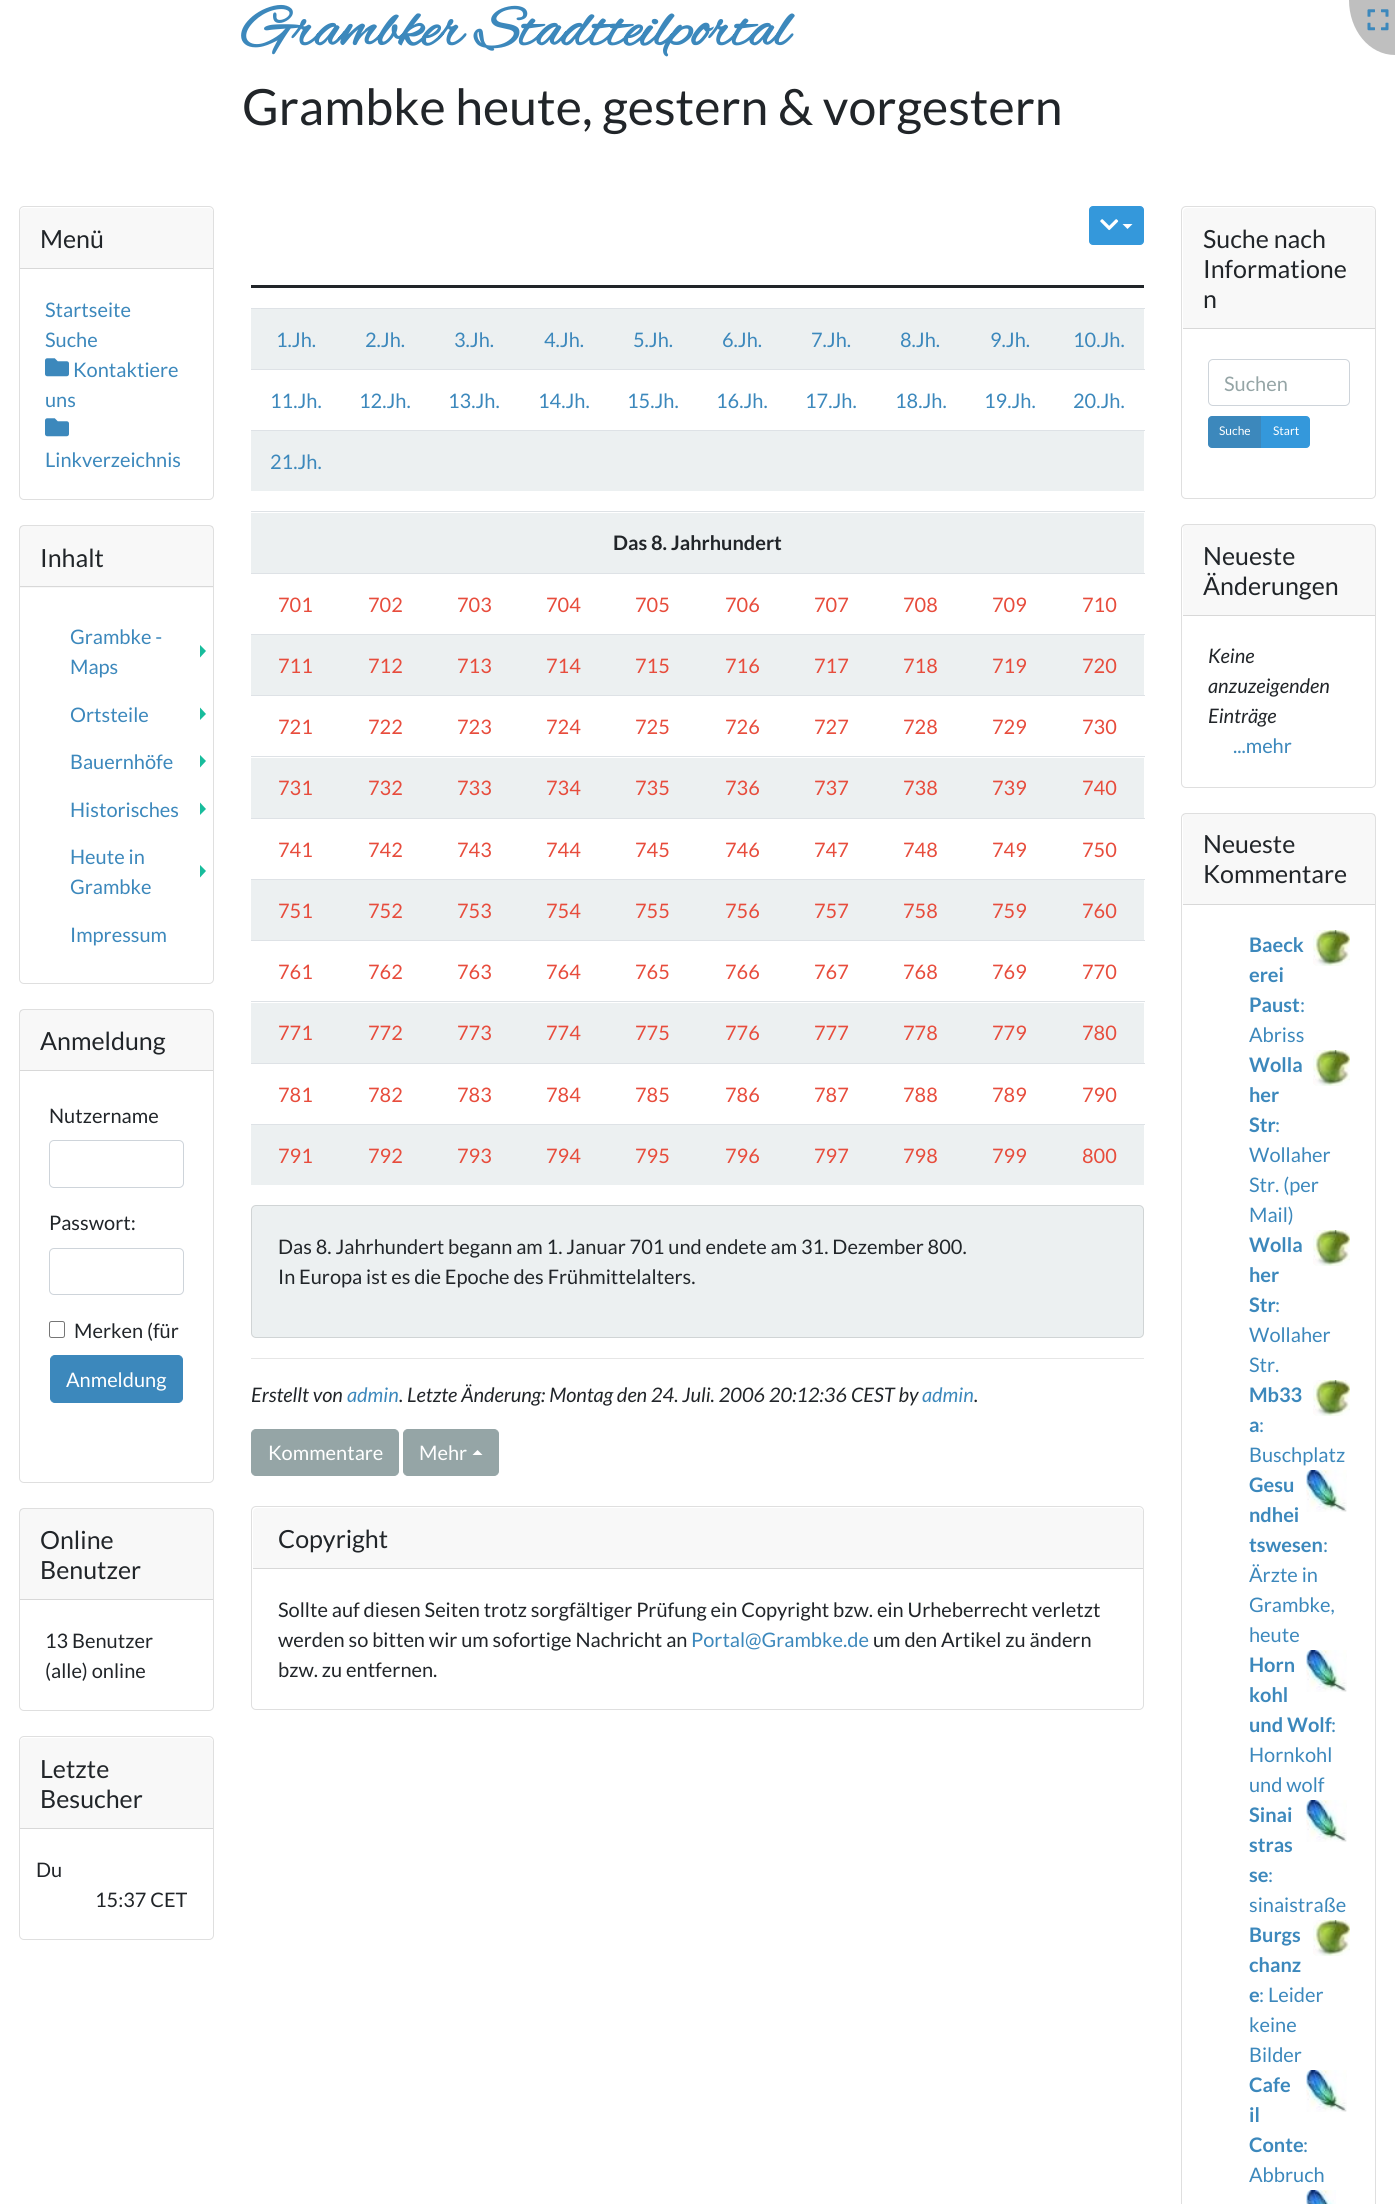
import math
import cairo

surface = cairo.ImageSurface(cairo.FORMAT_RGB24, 1395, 2204)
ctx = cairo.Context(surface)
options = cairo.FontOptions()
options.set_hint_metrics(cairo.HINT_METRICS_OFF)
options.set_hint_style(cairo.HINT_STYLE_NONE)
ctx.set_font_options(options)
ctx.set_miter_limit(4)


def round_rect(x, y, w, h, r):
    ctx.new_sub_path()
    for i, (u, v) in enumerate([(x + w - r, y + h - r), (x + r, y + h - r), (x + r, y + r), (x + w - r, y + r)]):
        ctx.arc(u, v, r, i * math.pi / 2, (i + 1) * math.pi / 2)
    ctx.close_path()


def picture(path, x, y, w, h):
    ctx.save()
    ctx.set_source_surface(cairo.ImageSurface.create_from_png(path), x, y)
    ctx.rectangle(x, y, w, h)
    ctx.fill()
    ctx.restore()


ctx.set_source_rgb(1, 1, 1)
ctx.paint()
ctx.select_font_face("Alex Brush", cairo.FONT_SLANT_NORMAL, cairo.FONT_WEIGHT_BOLD)
ctx.set_font_size(60)
ctx.set_source_rgb(0.235, 0.533, 0.737)
ctx.move_to(242, 45)
ctx.show_text("Grambker Stadtteilportal")
ctx.select_font_face("Lato")
ctx.set_font_size(50)
ctx.set_source_rgb(0.129, 0.145, 0.161)
ctx.move_to(242, 125)
ctx.show_text("Grambke heute, gestern & vorgestern")
ctx.set_source_rgb(0.749, 0.749, 0.749)
ctx.new_path()
ctx.move_to(1349, 0)
ctx.line_to(1395, 0)
ctx.line_to(1395, 55)
ctx.curve_to(1369, 55, 1349, 30, 1349, 0)
ctx.close_path()
ctx.fill()
picture("img1.png", 1367, 9, 22, 22)
round_rect(19.5, 206.5, 194, 293, 4.5)
ctx.set_source_rgb(0.875, 0.875, 0.875)
ctx.set_line_width(1)
ctx.stroke()
ctx.set_source_rgb(0.969, 0.969, 0.969)
ctx.new_path()
ctx.move_to(24, 208)
ctx.line_to(209, 208)
ctx.curve_to(211, 208, 213, 210, 213, 212)
ctx.line_to(213, 269)
ctx.line_to(20, 269)
ctx.line_to(20, 212)
ctx.curve_to(20, 210, 22, 208, 24, 208)
ctx.close_path()
ctx.fill()
ctx.set_source_rgb(0.847, 0.847, 0.847)
ctx.rectangle(20, 268, 193, 1)
ctx.fill()
ctx.set_font_size(25)
ctx.set_source_rgb(0.129, 0.145, 0.161)
ctx.move_to(40, 248)
ctx.show_text("Menü")
ctx.set_font_size(20)
ctx.set_source_rgb(0.235, 0.533, 0.737)
ctx.move_to(45, 317)
ctx.show_text("Startseite")
ctx.move_to(45, 347)
ctx.show_text("Suche")
picture("img2.png", 45, 358, 24, 19)
ctx.move_to(73, 377)
ctx.show_text("Kontaktiere")
ctx.move_to(45, 407)
ctx.show_text("uns")
picture("img2.png", 45, 418, 24, 19)
ctx.move_to(45, 467)
ctx.show_text("Linkverzeichnis")
round_rect(19.5, 525.5, 194, 458, 4.5)
ctx.set_source_rgb(0.875, 0.875, 0.875)
ctx.stroke()
ctx.set_source_rgba(0, 0, 0, 0.03)
ctx.rectangle(20, 526, 193, 62)
ctx.fill()
ctx.set_source_rgb(0.847, 0.847, 0.847)
ctx.rectangle(20, 586, 193, 1)
ctx.fill()
ctx.set_font_size(25)
ctx.set_source_rgb(0.129, 0.145, 0.161)
ctx.move_to(40, 567)
ctx.show_text("Inhalt")
ctx.set_font_size(20)
ctx.set_source_rgb(0.235, 0.533, 0.737)
ctx.move_to(70, 644)
ctx.show_text("Grambke -")
ctx.set_source_rgb(0.094, 0.737, 0.612)
ctx.new_path()
ctx.move_to(200, 657.5)
ctx.line_to(200, 645)
ctx.line_to(206, 651)
ctx.close_path()
ctx.fill()
ctx.set_source_rgb(0.235, 0.533, 0.737)
ctx.move_to(70, 674)
ctx.show_text("Maps")
ctx.move_to(70, 722)
ctx.show_text("Ortsteile")
ctx.set_source_rgb(0.094, 0.737, 0.612)
ctx.new_path()
ctx.move_to(200, 720)
ctx.line_to(200, 707.5)
ctx.line_to(206, 714)
ctx.close_path()
ctx.fill()
ctx.set_source_rgb(0.235, 0.533, 0.737)
ctx.move_to(70, 769)
ctx.show_text("Bauernhöfe")
ctx.set_source_rgb(0.094, 0.737, 0.612)
ctx.new_path()
ctx.move_to(200, 767.5)
ctx.line_to(200, 755)
ctx.line_to(206, 761)
ctx.close_path()
ctx.fill()
ctx.set_source_rgb(0.235, 0.533, 0.737)
ctx.move_to(70, 817)
ctx.show_text("Historisches")
ctx.set_source_rgb(0.094, 0.737, 0.612)
ctx.new_path()
ctx.move_to(200, 815)
ctx.line_to(200, 802.5)
ctx.line_to(206, 809)
ctx.close_path()
ctx.fill()
ctx.set_source_rgb(0.235, 0.533, 0.737)
ctx.move_to(70, 864)
ctx.show_text("Heute in")
ctx.set_source_rgb(0.094, 0.737, 0.612)
ctx.new_path()
ctx.move_to(200, 877.5)
ctx.line_to(200, 865)
ctx.line_to(206, 871)
ctx.close_path()
ctx.fill()
ctx.set_source_rgb(0.235, 0.533, 0.737)
ctx.move_to(70, 894)
ctx.show_text("Grambke")
ctx.move_to(70, 942)
ctx.show_text("Impressum")
round_rect(19.5, 1009.5, 194, 473, 4.5)
ctx.set_source_rgb(0.875, 0.875, 0.875)
ctx.stroke()
ctx.set_source_rgba(0, 0, 0, 0.03)
ctx.rectangle(20, 1010, 193, 60)
ctx.fill()
ctx.set_source_rgb(0.847, 0.847, 0.847)
ctx.rectangle(20, 1070, 193, 1)
ctx.fill()
ctx.set_font_size(25)
ctx.set_source_rgb(0.129, 0.145, 0.161)
ctx.move_to(40, 1050)
ctx.show_text("Anmeldung")
ctx.set_font_size(20)
ctx.move_to(49, 1123)
ctx.show_text("Nutzername")
round_rect(49.5, 1140.5, 134, 47, 4.5)
ctx.set_source_rgb(0.808, 0.831, 0.855)
ctx.stroke()
ctx.set_source_rgb(0.129, 0.145, 0.161)
ctx.move_to(49, 1230)
ctx.show_text("Passwort:")
round_rect(49.5, 1248.5, 134, 46, 4.5)
ctx.set_source_rgb(0.808, 0.831, 0.855)
ctx.stroke()
round_rect(49.5, 1321.5, 15, 16, 2)
ctx.set_source_rgb(0.463, 0.463, 0.463)
ctx.stroke()
ctx.set_source_rgb(0.129, 0.145, 0.161)
ctx.move_to(74, 1338)
ctx.show_text("Merken (für")
ctx.set_source_rgb(0.235, 0.533, 0.737)
round_rect(50.5, 1355.5, 132, 47, 4.5)
ctx.fill_preserve()
ctx.stroke()
ctx.set_source_rgb(1, 1, 1)
ctx.move_to(66, 1387)
ctx.show_text("Anmeldung")
round_rect(19.5, 1508.5, 194, 202, 4.5)
ctx.set_source_rgb(0.875, 0.875, 0.875)
ctx.stroke()
ctx.set_source_rgba(0, 0, 0, 0.03)
ctx.rectangle(20, 1509, 193, 90)
ctx.fill()
ctx.set_source_rgb(0.847, 0.847, 0.847)
ctx.rectangle(20, 1599, 193, 1)
ctx.fill()
ctx.set_font_size(25)
ctx.set_source_rgb(0.129, 0.145, 0.161)
ctx.move_to(40, 1549)
ctx.show_text("Online")
ctx.move_to(40, 1579)
ctx.show_text("Benutzer")
ctx.set_font_size(20)
ctx.move_to(45, 1648)
ctx.show_text("13 Benutzer")
ctx.move_to(45, 1678)
ctx.show_text("(alle) online")
round_rect(19.5, 1736.5, 194, 203, 4.5)
ctx.set_source_rgb(0.875, 0.875, 0.875)
ctx.stroke()
ctx.set_source_rgb(0.969, 0.969, 0.969)
ctx.new_path()
ctx.move_to(24, 1738)
ctx.line_to(209, 1738)
ctx.curve_to(211, 1738, 213, 1740, 213, 1742)
ctx.line_to(213, 1829)
ctx.line_to(20, 1829)
ctx.line_to(20, 1742)
ctx.curve_to(20, 1740, 22, 1738, 24, 1738)
ctx.close_path()
ctx.fill()
ctx.set_source_rgb(0.847, 0.847, 0.847)
ctx.rectangle(20, 1828, 193, 1)
ctx.fill()
ctx.set_font_size(25)
ctx.set_source_rgb(0.129, 0.145, 0.161)
ctx.move_to(40, 1778)
ctx.show_text("Letzte")
ctx.move_to(40, 1808)
ctx.show_text("Besucher")
ctx.set_font_size(20)
ctx.move_to(36, 1877)
ctx.show_text("Du")
ctx.move_to(95, 1907)
ctx.show_text("15:37 CET")
ctx.set_source_rgb(0.204, 0.596, 0.859)
round_rect(1089.5, 206.5, 54, 38, 3.5)
ctx.fill_preserve()
ctx.stroke()
picture("img3.png", 1100, 219, 19, 12)
ctx.set_source_rgb(1, 1, 1)
ctx.new_path()
ctx.move_to(1122.5, 224)
ctx.line_to(1132.5, 224)
ctx.line_to(1127.5, 229)
ctx.close_path()
ctx.fill()
ctx.set_source_rgb(0.129, 0.145, 0.161)
ctx.rectangle(251, 285, 893, 3)
ctx.fill()
ctx.set_source_rgb(0.925, 0.941, 0.945)
ctx.rectangle(251, 309, 893, 60)
ctx.fill()
ctx.set_source_rgb(0.235, 0.533, 0.737)
ctx.move_to(276, 347)
ctx.show_text("1.Jh.")
ctx.move_to(365, 347)
ctx.show_text("2.Jh.")
ctx.move_to(454, 347)
ctx.show_text("3.Jh.")
ctx.move_to(544, 347)
ctx.show_text("4.Jh.")
ctx.move_to(633, 347)
ctx.show_text("5.Jh.")
ctx.move_to(722, 347)
ctx.show_text("6.Jh.")
ctx.move_to(811, 347)
ctx.show_text("7.Jh.")
ctx.move_to(900, 347)
ctx.show_text("8.Jh.")
ctx.move_to(990, 347)
ctx.show_text("9.Jh.")
ctx.set_source_rgb(0.871, 0.886, 0.902)
ctx.rectangle(251, 308, 894, 1)
ctx.fill()
ctx.set_source_rgb(0.235, 0.533, 0.737)
ctx.move_to(1073, 347)
ctx.show_text("10.Jh.")
ctx.move_to(270, 408)
ctx.show_text("11.Jh.")
ctx.move_to(359, 408)
ctx.show_text("12.Jh.")
ctx.move_to(448, 408)
ctx.show_text("13.Jh.")
ctx.move_to(538, 408)
ctx.show_text("14.Jh.")
ctx.move_to(627, 408)
ctx.show_text("15.Jh.")
ctx.move_to(716, 408)
ctx.show_text("16.Jh.")
ctx.move_to(805, 408)
ctx.show_text("17.Jh.")
ctx.move_to(895, 408)
ctx.show_text("18.Jh.")
ctx.move_to(984, 408)
ctx.show_text("19.Jh.")
ctx.set_source_rgb(0.871, 0.886, 0.902)
ctx.rectangle(251, 369, 894, 1)
ctx.fill()
ctx.set_source_rgb(0.235, 0.533, 0.737)
ctx.move_to(1073, 408)
ctx.show_text("20.Jh.")
ctx.set_source_rgb(0.925, 0.941, 0.945)
ctx.rectangle(251, 431, 893, 60)
ctx.fill()
ctx.set_source_rgb(0.871, 0.886, 0.902)
ctx.rectangle(251, 430, 894, 1)
ctx.fill()
ctx.set_source_rgb(0.235, 0.533, 0.737)
ctx.move_to(270, 469)
ctx.show_text("21.Jh.")
ctx.set_source_rgb(0.925, 0.941, 0.945)
ctx.rectangle(251, 513, 893, 60)
ctx.fill()
ctx.set_source_rgb(0.871, 0.886, 0.902)
ctx.rectangle(251, 511, 894, 1)
ctx.fill()
ctx.select_font_face("Lato", cairo.FONT_SLANT_NORMAL, cairo.FONT_WEIGHT_BOLD)
ctx.set_source_rgb(0.129, 0.145, 0.161)
ctx.move_to(613, 550)
ctx.show_text("Das 8. Jahrhundert")
ctx.select_font_face("Lato")
ctx.set_source_rgb(0.906, 0.298, 0.235)
ctx.move_to(278, 612)
ctx.show_text("701")
ctx.move_to(368, 612)
ctx.show_text("702")
ctx.move_to(457, 612)
ctx.show_text("703")
ctx.move_to(546, 612)
ctx.show_text("704")
ctx.move_to(635, 612)
ctx.show_text("705")
ctx.move_to(725, 612)
ctx.show_text("706")
ctx.move_to(814, 612)
ctx.show_text("707")
ctx.move_to(903, 612)
ctx.show_text("708")
ctx.move_to(992, 612)
ctx.show_text("709")
ctx.set_source_rgb(0.871, 0.886, 0.902)
ctx.rectangle(251, 573, 894, 1)
ctx.fill()
ctx.set_source_rgb(0.906, 0.298, 0.235)
ctx.move_to(1082, 612)
ctx.show_text("710")
ctx.set_source_rgb(0.925, 0.941, 0.945)
ctx.rectangle(251, 635, 893, 60)
ctx.fill()
ctx.set_source_rgb(0.906, 0.298, 0.235)
ctx.move_to(278, 673)
ctx.show_text("711")
ctx.move_to(368, 673)
ctx.show_text("712")
ctx.move_to(457, 673)
ctx.show_text("713")
ctx.move_to(546, 673)
ctx.show_text("714")
ctx.move_to(635, 673)
ctx.show_text("715")
ctx.move_to(725, 673)
ctx.show_text("716")
ctx.move_to(814, 673)
ctx.show_text("717")
ctx.move_to(903, 673)
ctx.show_text("718")
ctx.move_to(992, 673)
ctx.show_text("719")
ctx.set_source_rgb(0.871, 0.886, 0.902)
ctx.rectangle(251, 634, 894, 1)
ctx.fill()
ctx.set_source_rgb(0.906, 0.298, 0.235)
ctx.move_to(1082, 673)
ctx.show_text("720")
ctx.move_to(278, 734)
ctx.show_text("721")
ctx.move_to(368, 734)
ctx.show_text("722")
ctx.move_to(457, 734)
ctx.show_text("723")
ctx.move_to(546, 734)
ctx.show_text("724")
ctx.move_to(635, 734)
ctx.show_text("725")
ctx.move_to(725, 734)
ctx.show_text("726")
ctx.move_to(814, 734)
ctx.show_text("727")
ctx.move_to(903, 734)
ctx.show_text("728")
ctx.move_to(992, 734)
ctx.show_text("729")
ctx.set_source_rgb(0.871, 0.886, 0.902)
ctx.rectangle(251, 695, 894, 1)
ctx.fill()
ctx.set_source_rgb(0.906, 0.298, 0.235)
ctx.move_to(1082, 734)
ctx.show_text("730")
ctx.set_source_rgb(0.925, 0.941, 0.945)
ctx.rectangle(251, 758, 893, 60)
ctx.fill()
ctx.set_source_rgb(0.906, 0.298, 0.235)
ctx.move_to(278, 795)
ctx.show_text("731")
ctx.move_to(368, 795)
ctx.show_text("732")
ctx.move_to(457, 795)
ctx.show_text("733")
ctx.move_to(546, 795)
ctx.show_text("734")
ctx.move_to(635, 795)
ctx.show_text("735")
ctx.move_to(725, 795)
ctx.show_text("736")
ctx.move_to(814, 795)
ctx.show_text("737")
ctx.move_to(903, 795)
ctx.show_text("738")
ctx.move_to(992, 795)
ctx.show_text("739")
ctx.set_source_rgb(0.871, 0.886, 0.902)
ctx.rectangle(251, 756, 894, 1)
ctx.fill()
ctx.set_source_rgb(0.906, 0.298, 0.235)
ctx.move_to(1082, 795)
ctx.show_text("740")
ctx.move_to(278, 857)
ctx.show_text("741")
ctx.move_to(368, 857)
ctx.show_text("742")
ctx.move_to(457, 857)
ctx.show_text("743")
ctx.move_to(546, 857)
ctx.show_text("744")
ctx.move_to(635, 857)
ctx.show_text("745")
ctx.move_to(725, 857)
ctx.show_text("746")
ctx.move_to(814, 857)
ctx.show_text("747")
ctx.move_to(903, 857)
ctx.show_text("748")
ctx.move_to(992, 857)
ctx.show_text("749")
ctx.set_source_rgb(0.871, 0.886, 0.902)
ctx.rectangle(251, 818, 894, 1)
ctx.fill()
ctx.set_source_rgb(0.906, 0.298, 0.235)
ctx.move_to(1082, 857)
ctx.show_text("750")
ctx.set_source_rgb(0.925, 0.941, 0.945)
ctx.rectangle(251, 880, 893, 60)
ctx.fill()
ctx.set_source_rgb(0.906, 0.298, 0.235)
ctx.move_to(278, 918)
ctx.show_text("751")
ctx.move_to(368, 918)
ctx.show_text("752")
ctx.move_to(457, 918)
ctx.show_text("753")
ctx.move_to(546, 918)
ctx.show_text("754")
ctx.move_to(635, 918)
ctx.show_text("755")
ctx.move_to(725, 918)
ctx.show_text("756")
ctx.move_to(814, 918)
ctx.show_text("757")
ctx.move_to(903, 918)
ctx.show_text("758")
ctx.move_to(992, 918)
ctx.show_text("759")
ctx.set_source_rgb(0.871, 0.886, 0.902)
ctx.rectangle(251, 879, 894, 1)
ctx.fill()
ctx.set_source_rgb(0.906, 0.298, 0.235)
ctx.move_to(1082, 918)
ctx.show_text("760")
ctx.move_to(278, 979)
ctx.show_text("761")
ctx.move_to(368, 979)
ctx.show_text("762")
ctx.move_to(457, 979)
ctx.show_text("763")
ctx.move_to(546, 979)
ctx.show_text("764")
ctx.move_to(635, 979)
ctx.show_text("765")
ctx.move_to(725, 979)
ctx.show_text("766")
ctx.move_to(814, 979)
ctx.show_text("767")
ctx.move_to(903, 979)
ctx.show_text("768")
ctx.move_to(992, 979)
ctx.show_text("769")
ctx.set_source_rgb(0.871, 0.886, 0.902)
ctx.rectangle(251, 940, 894, 1)
ctx.fill()
ctx.set_source_rgb(0.906, 0.298, 0.235)
ctx.move_to(1082, 979)
ctx.show_text("770")
ctx.set_source_rgb(0.925, 0.941, 0.945)
ctx.rectangle(251, 1003, 893, 60)
ctx.fill()
ctx.set_source_rgb(0.906, 0.298, 0.235)
ctx.move_to(278, 1040)
ctx.show_text("771")
ctx.move_to(368, 1040)
ctx.show_text("772")
ctx.move_to(457, 1040)
ctx.show_text("773")
ctx.move_to(546, 1040)
ctx.show_text("774")
ctx.move_to(635, 1040)
ctx.show_text("775")
ctx.move_to(725, 1040)
ctx.show_text("776")
ctx.move_to(814, 1040)
ctx.show_text("777")
ctx.move_to(903, 1040)
ctx.show_text("778")
ctx.move_to(992, 1040)
ctx.show_text("779")
ctx.set_source_rgb(0.871, 0.886, 0.902)
ctx.rectangle(251, 1001, 894, 1)
ctx.fill()
ctx.set_source_rgb(0.906, 0.298, 0.235)
ctx.move_to(1082, 1040)
ctx.show_text("780")
ctx.move_to(278, 1102)
ctx.show_text("781")
ctx.move_to(368, 1102)
ctx.show_text("782")
ctx.move_to(457, 1102)
ctx.show_text("783")
ctx.move_to(546, 1102)
ctx.show_text("784")
ctx.move_to(635, 1102)
ctx.show_text("785")
ctx.move_to(725, 1102)
ctx.show_text("786")
ctx.move_to(814, 1102)
ctx.show_text("787")
ctx.move_to(903, 1102)
ctx.show_text("788")
ctx.move_to(992, 1102)
ctx.show_text("789")
ctx.set_source_rgb(0.871, 0.886, 0.902)
ctx.rectangle(251, 1063, 894, 1)
ctx.fill()
ctx.set_source_rgb(0.906, 0.298, 0.235)
ctx.move_to(1082, 1102)
ctx.show_text("790")
ctx.set_source_rgb(0.925, 0.941, 0.945)
ctx.rectangle(251, 1125, 893, 60)
ctx.fill()
ctx.set_source_rgb(0.906, 0.298, 0.235)
ctx.move_to(278, 1163)
ctx.show_text("791")
ctx.move_to(368, 1163)
ctx.show_text("792")
ctx.move_to(457, 1163)
ctx.show_text("793")
ctx.move_to(546, 1163)
ctx.show_text("794")
ctx.move_to(635, 1163)
ctx.show_text("795")
ctx.move_to(725, 1163)
ctx.show_text("796")
ctx.move_to(814, 1163)
ctx.show_text("797")
ctx.move_to(903, 1163)
ctx.show_text("798")
ctx.move_to(992, 1163)
ctx.show_text("799")
ctx.set_source_rgb(0.871, 0.886, 0.902)
ctx.rectangle(251, 1124, 894, 1)
ctx.fill()
ctx.set_source_rgb(0.906, 0.298, 0.235)
ctx.move_to(1082, 1163)
ctx.show_text("800")
ctx.set_source_rgb(0.925, 0.941, 0.945)
round_rect(251, 1205, 893, 133, 5)
ctx.fill()
round_rect(251.5, 1205.5, 892, 132, 4.5)
ctx.set_source_rgba(0, 0, 0, 0.12)
ctx.stroke()
ctx.set_source_rgb(0.129, 0.145, 0.161)
ctx.move_to(278, 1254)
ctx.show_text("Das 8. Jahrhundert begann am 1. Januar 701 und endete am 31. Dezember 800.")
ctx.move_to(278, 1284)
ctx.show_text("In Europa ist es die Epoche des Frühmittelalters.")
ctx.set_source_rgb(0.902, 0.902, 0.902)
ctx.rectangle(251, 1358, 893, 1)
ctx.fill()
ctx.select_font_face("Lato", cairo.FONT_SLANT_ITALIC)
ctx.set_source_rgb(0.129, 0.145, 0.161)
ctx.move_to(251, 1402)
ctx.show_text("Erstellt von")
ctx.set_source_rgb(0.235, 0.533, 0.737)
ctx.move_to(347, 1402)
ctx.show_text("admin")
ctx.set_source_rgb(0.129, 0.145, 0.161)
ctx.move_to(399, 1402)
ctx.show_text(". Letzte Änderung: Montag den 24. Juli. 2006 20:12:36 CEST by")
ctx.set_source_rgb(0.235, 0.533, 0.737)
ctx.move_to(922, 1402)
ctx.show_text("admin")
ctx.set_source_rgb(0.129, 0.145, 0.161)
ctx.move_to(974, 1402)
ctx.show_text(".")
ctx.set_source_rgb(0.584, 0.647, 0.651)
round_rect(251.5, 1429.5, 147, 46, 4.5)
ctx.fill_preserve()
ctx.stroke()
ctx.select_font_face("Lato")
ctx.set_source_rgb(1, 1, 1)
ctx.move_to(268, 1460)
ctx.show_text("Kommentare")
ctx.set_source_rgb(0.584, 0.647, 0.651)
round_rect(403.5, 1429.5, 95, 46, 4.5)
ctx.fill_preserve()
ctx.stroke()
ctx.set_source_rgb(1, 1, 1)
ctx.move_to(419, 1460)
ctx.show_text("Mehr")
ctx.new_path()
ctx.move_to(482.5, 1455)
ctx.line_to(472.5, 1455)
ctx.line_to(477.5, 1450)
ctx.close_path()
ctx.fill()
round_rect(251.5, 1506.5, 892, 203, 4.5)
ctx.set_source_rgb(0.875, 0.875, 0.875)
ctx.stroke()
ctx.set_source_rgb(0.969, 0.969, 0.969)
ctx.new_path()
ctx.move_to(257, 1508)
ctx.line_to(1139, 1508)
ctx.curve_to(1141, 1508, 1143, 1510, 1143, 1512)
ctx.line_to(1143, 1569)
ctx.line_to(253, 1569)
ctx.line_to(253, 1512)
ctx.curve_to(253, 1510, 255, 1508, 257, 1508)
ctx.close_path()
ctx.fill()
ctx.set_source_rgb(0.847, 0.847, 0.847)
ctx.rectangle(253, 1568, 890, 1)
ctx.fill()
ctx.set_font_size(25)
ctx.set_source_rgb(0.129, 0.145, 0.161)
ctx.move_to(278, 1548)
ctx.show_text("Copyright")
ctx.set_font_size(20)
ctx.move_to(278, 1617)
ctx.show_text("Sollte auf diesen Seiten trotz sorgfältiger Prüfung ein Copyright bzw. ein Urheberrecht verletzt")
ctx.move_to(278, 1647)
ctx.show_text("werden so bitten wir um sofortige Nachricht an")
ctx.set_source_rgb(0.235, 0.533, 0.737)
ctx.move_to(691, 1647)
ctx.show_text("Portal@Grambke.de")
ctx.set_source_rgb(0.129, 0.145, 0.161)
ctx.move_to(873, 1647)
ctx.show_text("um den Artikel zu ändern")
ctx.move_to(278, 1677)
ctx.show_text("bzw. zu entfernen.")
round_rect(1181.5, 206.5, 194, 292, 4.5)
ctx.set_source_rgb(0.875, 0.875, 0.875)
ctx.stroke()
ctx.set_source_rgb(0.969, 0.969, 0.969)
ctx.new_path()
ctx.move_to(1187, 208)
ctx.line_to(1371, 208)
ctx.curve_to(1373, 208, 1375, 210, 1375, 212)
ctx.line_to(1375, 329)
ctx.line_to(1183, 329)
ctx.line_to(1183, 212)
ctx.curve_to(1183, 210, 1185, 208, 1187, 208)
ctx.close_path()
ctx.fill()
ctx.set_source_rgb(0.847, 0.847, 0.847)
ctx.rectangle(1183, 328, 192, 1)
ctx.fill()
ctx.set_font_size(25)
ctx.set_source_rgb(0.129, 0.145, 0.161)
ctx.move_to(1203, 248)
ctx.show_text("Suche nach")
ctx.move_to(1203, 278)
ctx.show_text("Informatione")
ctx.move_to(1203, 308)
ctx.show_text("n")
round_rect(1208.5, 359.5, 141, 46, 4.5)
ctx.set_source_rgb(0.808, 0.831, 0.855)
ctx.stroke()
ctx.set_font_size(20)
ctx.set_source_rgb(0.584, 0.647, 0.651)
ctx.move_to(1224, 391)
ctx.show_text("Suchen")
ctx.set_source_rgb(0.235, 0.533, 0.737)
ctx.new_path()
ctx.move_to(1212, 416.5)
ctx.line_to(1260.5, 416.5)
ctx.line_to(1260.5, 447.5)
ctx.line_to(1212, 447.5)
ctx.curve_to(1210, 447.5, 1208.5, 446, 1208.5, 444)
ctx.line_to(1208.5, 420)
ctx.curve_to(1208.5, 418, 1210, 416.5, 1212, 416.5)
ctx.close_path()
ctx.fill_preserve()
ctx.stroke()
ctx.set_font_size(12)
ctx.set_source_rgb(1, 1, 1)
ctx.move_to(1219, 435)
ctx.show_text("Suche")
ctx.set_source_rgb(0.204, 0.596, 0.859)
ctx.new_path()
ctx.move_to(1261.5, 416.5)
ctx.line_to(1306, 416.5)
ctx.curve_to(1308, 416.5, 1309.5, 418, 1309.5, 420)
ctx.line_to(1309.5, 444)
ctx.curve_to(1309.5, 446, 1308, 447.5, 1306, 447.5)
ctx.line_to(1261.5, 447.5)
ctx.close_path()
ctx.fill_preserve()
ctx.stroke()
ctx.set_source_rgb(1, 1, 1)
ctx.move_to(1273, 435)
ctx.show_text("Start")
round_rect(1181.5, 524.5, 194, 263, 4.5)
ctx.set_source_rgb(0.875, 0.875, 0.875)
ctx.stroke()
ctx.set_source_rgba(0, 0, 0, 0.03)
ctx.rectangle(1183, 525, 192, 90)
ctx.fill()
ctx.set_source_rgb(0.847, 0.847, 0.847)
ctx.rectangle(1183, 615, 192, 1)
ctx.fill()
ctx.set_font_size(25)
ctx.set_source_rgb(0.129, 0.145, 0.161)
ctx.move_to(1203, 565)
ctx.show_text("Neueste")
ctx.move_to(1203, 595)
ctx.show_text("Änderungen")
ctx.select_font_face("Lato", cairo.FONT_SLANT_ITALIC)
ctx.set_font_size(20)
ctx.move_to(1208, 663)
ctx.show_text("Keine")
ctx.move_to(1208, 693)
ctx.show_text("anzuzeigenden")
ctx.move_to(1208, 723)
ctx.show_text("Einträge")
ctx.select_font_face("Lato")
ctx.set_source_rgb(0.235, 0.533, 0.737)
ctx.move_to(1233, 753)
ctx.show_text("...mehr")
round_rect(1181.5, 813.5, 194, 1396, 4.5)
ctx.set_source_rgb(0.875, 0.875, 0.875)
ctx.stroke()
ctx.set_source_rgba(0, 0, 0, 0.03)
ctx.rectangle(1183, 814, 192, 90)
ctx.fill()
ctx.set_source_rgb(0.847, 0.847, 0.847)
ctx.rectangle(1183, 904, 192, 1)
ctx.fill()
ctx.set_font_size(25)
ctx.set_source_rgb(0.129, 0.145, 0.161)
ctx.move_to(1203, 853)
ctx.show_text("Neueste")
ctx.move_to(1203, 883)
ctx.show_text("Kommentare")
ctx.select_font_face("Lato", cairo.FONT_SLANT_NORMAL, cairo.FONT_WEIGHT_BOLD)
ctx.set_font_size(20)
ctx.set_source_rgb(0.235, 0.533, 0.737)
ctx.move_to(1249, 952)
ctx.show_text("Baeck")
picture("img4.png", 1313, 930, 37, 36)
ctx.move_to(1249, 982)
ctx.show_text("erei")
ctx.move_to(1249, 1012)
ctx.show_text("Paust")
ctx.select_font_face("Lato")
ctx.move_to(1300, 1012)
ctx.show_text(":")
ctx.move_to(1249, 1042)
ctx.show_text("Abriss")
ctx.select_font_face("Lato", cairo.FONT_SLANT_NORMAL, cairo.FONT_WEIGHT_BOLD)
ctx.move_to(1249, 1072)
ctx.show_text("Wolla")
picture("img4.png", 1313, 1050, 37, 36)
ctx.move_to(1249, 1102)
ctx.show_text("her")
ctx.move_to(1249, 1132)
ctx.show_text("Str")
ctx.select_font_face("Lato")
ctx.move_to(1275, 1132)
ctx.show_text(":")
ctx.move_to(1249, 1162)
ctx.show_text("Wollaher")
ctx.move_to(1249, 1192)
ctx.show_text("Str. (per")
ctx.move_to(1249, 1222)
ctx.show_text("Mail)")
ctx.select_font_face("Lato", cairo.FONT_SLANT_NORMAL, cairo.FONT_WEIGHT_BOLD)
ctx.move_to(1249, 1252)
ctx.show_text("Wolla")
picture("img4.png", 1313, 1230, 37, 36)
ctx.move_to(1249, 1282)
ctx.show_text("her")
ctx.move_to(1249, 1312)
ctx.show_text("Str")
ctx.select_font_face("Lato")
ctx.move_to(1275, 1312)
ctx.show_text(":")
ctx.move_to(1249, 1342)
ctx.show_text("Wollaher")
ctx.move_to(1249, 1372)
ctx.show_text("Str.")
ctx.select_font_face("Lato", cairo.FONT_SLANT_NORMAL, cairo.FONT_WEIGHT_BOLD)
ctx.move_to(1249, 1402)
ctx.show_text("Mb33")
picture("img4.png", 1313, 1380, 37, 36)
ctx.move_to(1249, 1432)
ctx.show_text("a")
ctx.select_font_face("Lato")
ctx.move_to(1259, 1432)
ctx.show_text(":")
ctx.move_to(1249, 1462)
ctx.show_text("Buschplatz")
ctx.select_font_face("Lato", cairo.FONT_SLANT_NORMAL, cairo.FONT_WEIGHT_BOLD)
ctx.move_to(1249, 1492)
ctx.show_text("Gesu")
picture("img5.png", 1306, 1470, 41, 42)
ctx.move_to(1249, 1522)
ctx.show_text("ndhei")
ctx.move_to(1249, 1552)
ctx.show_text("tswesen")
ctx.select_font_face("Lato")
ctx.move_to(1323, 1552)
ctx.show_text(":")
ctx.move_to(1249, 1582)
ctx.show_text("Ärzte in")
ctx.move_to(1249, 1612)
ctx.show_text("Grambke,")
ctx.move_to(1249, 1642)
ctx.show_text("heute")
ctx.select_font_face("Lato", cairo.FONT_SLANT_NORMAL, cairo.FONT_WEIGHT_BOLD)
ctx.move_to(1249, 1672)
ctx.show_text("Horn")
picture("img5.png", 1306, 1650, 41, 42)
ctx.move_to(1249, 1702)
ctx.show_text("kohl")
ctx.move_to(1249, 1732)
ctx.show_text("und Wolf")
ctx.select_font_face("Lato")
ctx.move_to(1331, 1732)
ctx.show_text(":")
ctx.move_to(1249, 1762)
ctx.show_text("Hornkohl")
ctx.move_to(1249, 1792)
ctx.show_text("und wolf")
ctx.select_font_face("Lato", cairo.FONT_SLANT_NORMAL, cairo.FONT_WEIGHT_BOLD)
ctx.move_to(1249, 1822)
ctx.show_text("Sinai")
picture("img5.png", 1306, 1800, 41, 42)
ctx.move_to(1249, 1852)
ctx.show_text("stras")
ctx.move_to(1249, 1882)
ctx.show_text("se")
ctx.select_font_face("Lato")
ctx.move_to(1268, 1882)
ctx.show_text(":")
ctx.move_to(1249, 1912)
ctx.show_text("sinaistraße")
ctx.select_font_face("Lato", cairo.FONT_SLANT_NORMAL, cairo.FONT_WEIGHT_BOLD)
ctx.move_to(1249, 1942)
ctx.show_text("Burgs")
picture("img4.png", 1313, 1920, 37, 36)
ctx.move_to(1249, 1972)
ctx.show_text("chanz")
ctx.move_to(1249, 2002)
ctx.show_text("e")
ctx.select_font_face("Lato")
ctx.move_to(1259, 2002)
ctx.show_text(": Leider")
ctx.move_to(1249, 2032)
ctx.show_text("keine")
ctx.move_to(1249, 2062)
ctx.show_text("Bilder")
ctx.select_font_face("Lato", cairo.FONT_SLANT_NORMAL, cairo.FONT_WEIGHT_BOLD)
ctx.move_to(1249, 2092)
ctx.show_text("Cafe")
picture("img5.png", 1306, 2070, 41, 42)
ctx.move_to(1249, 2122)
ctx.show_text("il")
ctx.move_to(1249, 2152)
ctx.show_text("Conte")
ctx.select_font_face("Lato")
ctx.move_to(1303, 2152)
ctx.show_text(":")
ctx.move_to(1249, 2182)
ctx.show_text("Abbruch")
picture("img6.png", 1306, 2190, 30, 14)
surface.write_to_png("page.png")
